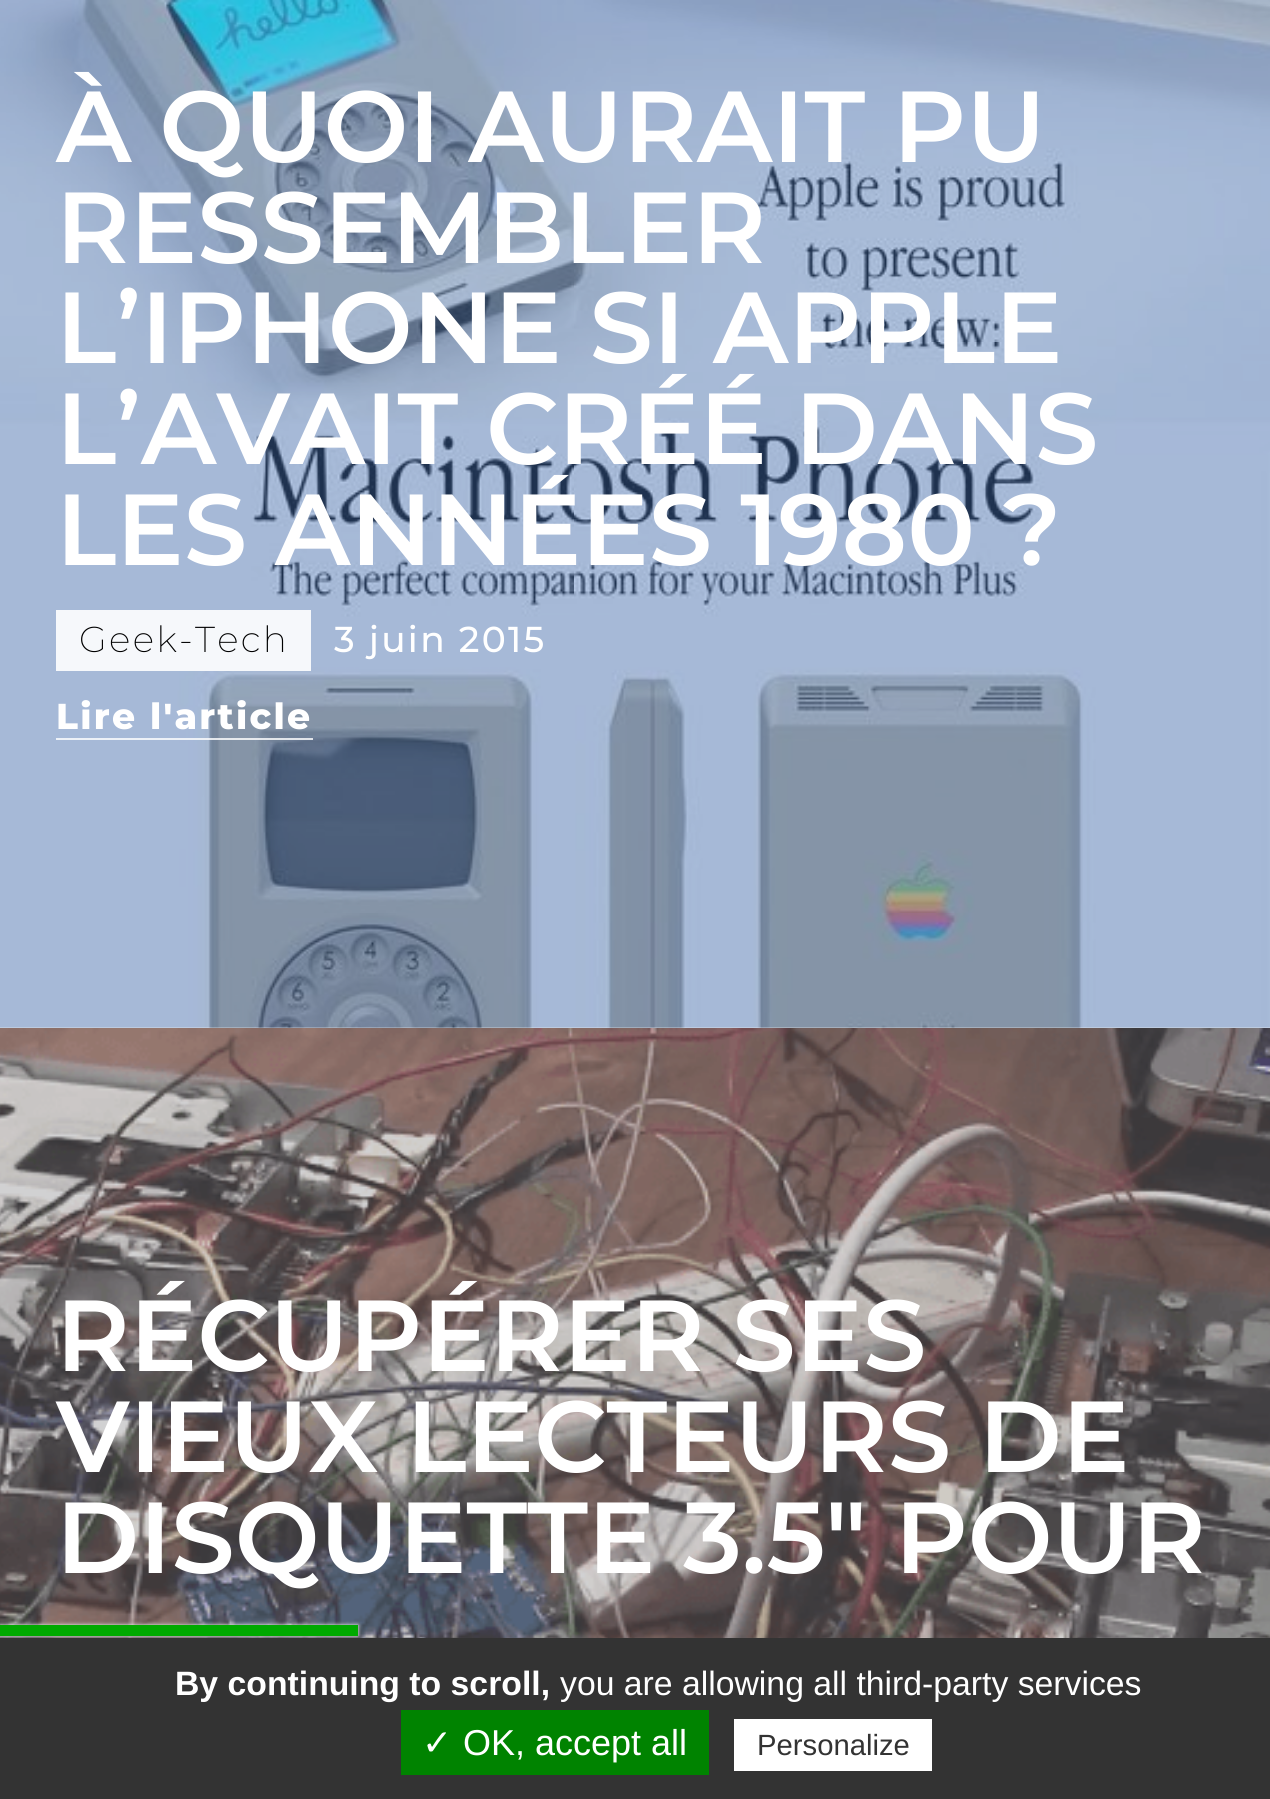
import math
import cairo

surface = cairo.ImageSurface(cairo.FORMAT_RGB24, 1270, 1799)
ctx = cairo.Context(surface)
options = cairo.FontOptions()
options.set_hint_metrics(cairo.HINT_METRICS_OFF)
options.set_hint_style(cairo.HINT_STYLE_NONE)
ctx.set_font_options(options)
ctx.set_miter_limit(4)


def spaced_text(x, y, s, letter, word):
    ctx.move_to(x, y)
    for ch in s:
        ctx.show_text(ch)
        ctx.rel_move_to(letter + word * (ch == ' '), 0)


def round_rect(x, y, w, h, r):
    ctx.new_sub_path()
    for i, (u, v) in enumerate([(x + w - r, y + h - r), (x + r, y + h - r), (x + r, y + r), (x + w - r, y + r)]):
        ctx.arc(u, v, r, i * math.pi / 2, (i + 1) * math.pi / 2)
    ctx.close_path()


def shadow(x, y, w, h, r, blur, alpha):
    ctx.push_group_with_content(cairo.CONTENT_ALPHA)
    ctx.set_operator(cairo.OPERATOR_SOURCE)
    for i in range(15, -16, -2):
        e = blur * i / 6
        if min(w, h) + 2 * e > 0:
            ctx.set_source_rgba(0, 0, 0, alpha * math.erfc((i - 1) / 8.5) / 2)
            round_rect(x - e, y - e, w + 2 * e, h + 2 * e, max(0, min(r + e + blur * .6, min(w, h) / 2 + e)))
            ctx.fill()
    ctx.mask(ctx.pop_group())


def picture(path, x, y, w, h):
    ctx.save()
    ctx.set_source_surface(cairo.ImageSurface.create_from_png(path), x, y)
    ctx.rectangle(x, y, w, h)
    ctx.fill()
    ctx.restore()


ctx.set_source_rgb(1, 1, 1)
ctx.paint()
picture("img1.png", 0, 0, 1270, 1028)
ctx.select_font_face("Montserrat SemiBold")
ctx.set_font_size(100.75)
ctx.set_source_rgb(1, 1, 1)
ctx.move_to(56, 162)
ctx.show_text("À QUOI AURAIT PU")
ctx.move_to(56, 263)
ctx.show_text("RESSEMBLER")
ctx.move_to(56, 363)
ctx.show_text("L’IPHONE SI APPLE")
ctx.move_to(56, 464)
ctx.show_text("L’AVAIT CRÉÉ DANS")
ctx.move_to(56, 565)
ctx.show_text("LES ANNÉES 1980 ?")
ctx.set_source_rgba(1, 1, 1, 0.9)
ctx.rectangle(56, 610, 255, 61)
ctx.fill()
ctx.select_font_face("Montserrat ExtraLight")
ctx.set_font_size(36)
ctx.set_source_rgb(0, 0, 0)
spaced_text(79, 652, "Geek-Tech", 2.25, 0)
ctx.select_font_face("Montserrat Medium")
ctx.set_source_rgb(1, 1, 1)
spaced_text(334, 652, "3 juin 2015", 2.25, 0)
ctx.select_font_face("Montserrat ExtraBold")
spaced_text(56, 729, "Lire l'article", 2.25, 0)
ctx.set_source_rgba(1, 1, 1, 0.8)
ctx.rectangle(56, 738, 257, 2)
ctx.fill()
picture("img2.png", 0, 1028, 1270, 610)
ctx.select_font_face("Montserrat SemiBold")
ctx.set_font_size(100.75)
ctx.set_source_rgb(1, 1, 1)
ctx.move_to(56, 1371)
ctx.show_text("RÉCUPÉRER SES")
ctx.move_to(56, 1472)
ctx.show_text("VIEUX LECTEURS DE")
ctx.move_to(56, 1573)
ctx.show_text("DISQUETTE 3.5″ POUR")
ctx.set_source_rgb(0.333, 0.333, 0.333)
shadow(0, 1627, 358, 11, 0, 2, 1)
ctx.set_source_rgb(1, 1, 1)
shadow(0, 1625, 358, 11, 0, 2, 1)
ctx.set_source_rgb(0, 0.667, 0)
ctx.rectangle(0, 1625, 358, 11)
ctx.fill()
ctx.set_source_rgb(0.2, 0.2, 0.2)
ctx.rectangle(0, 1638, 1270, 161)
ctx.fill()
ctx.select_font_face("Liberation Sans", cairo.FONT_SLANT_NORMAL, cairo.FONT_WEIGHT_BOLD)
ctx.set_font_size(33.75)
ctx.set_source_rgb(1, 1, 1)
ctx.move_to(175, 1695)
ctx.show_text("By continuing to scroll,")
ctx.select_font_face("Liberation Sans")
ctx.move_to(560, 1695)
ctx.show_text("you are allowing all third-party services")
ctx.set_source_rgb(0, 0.514, 0)
ctx.rectangle(401, 1710, 308, 65)
ctx.fill()
ctx.select_font_face("DejaVu Sans")
ctx.set_font_size(36)
ctx.set_source_rgb(1, 1, 1)
ctx.move_to(422, 1755)
ctx.show_text("✓")
ctx.select_font_face("Liberation Sans")
ctx.move_to(463, 1755)
ctx.show_text("OK, accept all")
ctx.rectangle(734, 1719, 198, 52)
ctx.fill()
ctx.set_font_size(29.25)
ctx.set_source_rgb(0.2, 0.2, 0.2)
ctx.move_to(757, 1755)
ctx.show_text("Personalize")
surface.write_to_png("page.png")
